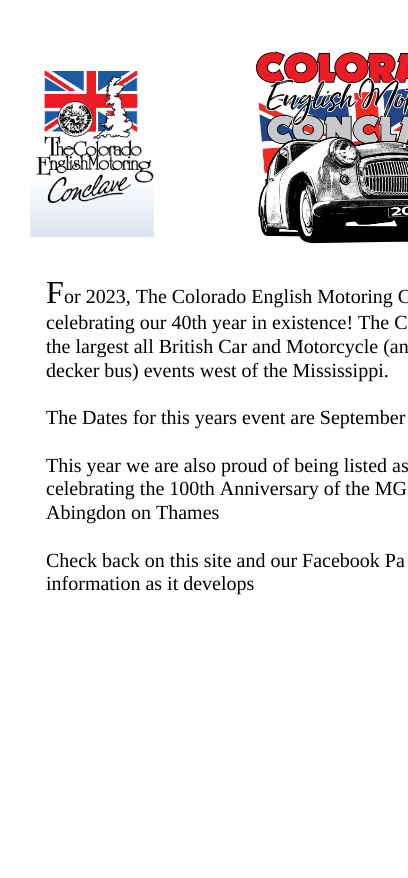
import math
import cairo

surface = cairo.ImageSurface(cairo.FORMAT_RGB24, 408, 878)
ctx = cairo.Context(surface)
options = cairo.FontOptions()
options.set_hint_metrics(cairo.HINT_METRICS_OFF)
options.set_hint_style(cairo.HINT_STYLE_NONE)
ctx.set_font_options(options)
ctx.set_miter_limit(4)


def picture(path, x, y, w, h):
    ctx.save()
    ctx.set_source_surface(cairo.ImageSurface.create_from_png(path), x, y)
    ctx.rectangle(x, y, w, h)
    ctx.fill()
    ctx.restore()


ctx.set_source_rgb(1, 1, 1)
ctx.paint()
picture("img1.png", 30, 71, 124, 166)
picture("img2.png", 256, 51, 152, 193)
ctx.select_font_face("Liberation Serif")
ctx.set_font_size(32)
ctx.set_source_rgb(0, 0, 0)
ctx.move_to(46, 303)
ctx.show_text("F")
ctx.set_font_size(20)
ctx.move_to(64, 303)
ctx.show_text("or 2023, The Colorado English Motoring C")
ctx.move_to(46, 329)
ctx.show_text("celebrating our 40th year in existence! The C")
ctx.move_to(46, 353)
ctx.show_text("the largest all British Car and Motorcycle (an")
ctx.move_to(46, 377)
ctx.show_text("decker bus) events west of the Mississippi.")
ctx.move_to(46, 424)
ctx.show_text("The Dates for this years event are September")
ctx.move_to(46, 472)
ctx.show_text("This year we are also proud of being listed as")
ctx.move_to(46, 495)
ctx.show_text("celebrating the 100th Anniversary of the MG")
ctx.move_to(46, 519)
ctx.show_text("Abingdon on Thames")
ctx.move_to(46, 567)
ctx.show_text("Check back on this site and our Facebook Pa")
ctx.move_to(46, 590)
ctx.show_text("information as it develops")
surface.write_to_png("page.png")
